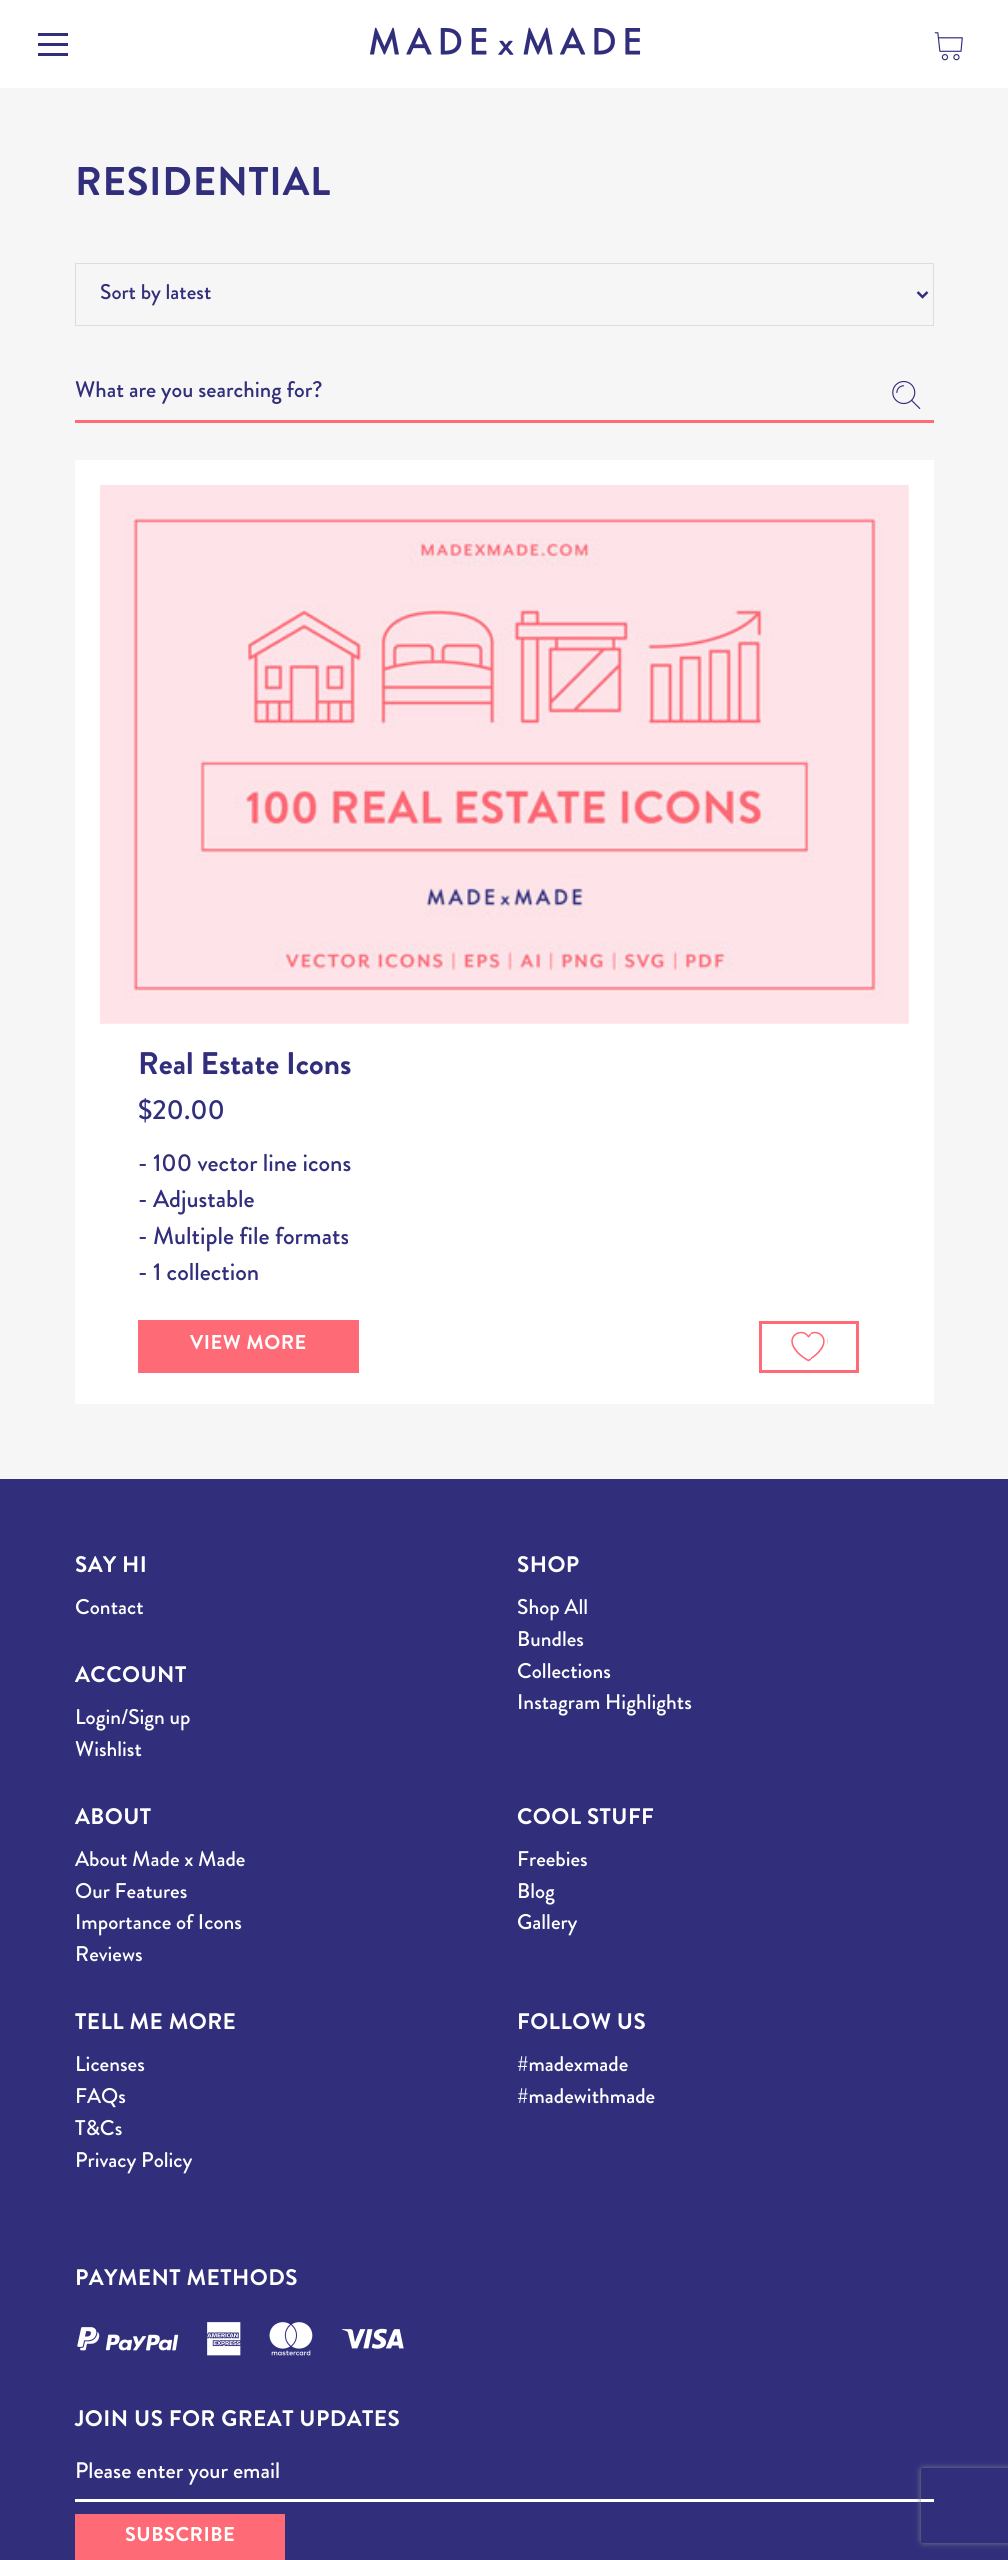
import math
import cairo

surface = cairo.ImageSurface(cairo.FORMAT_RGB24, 1008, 2560)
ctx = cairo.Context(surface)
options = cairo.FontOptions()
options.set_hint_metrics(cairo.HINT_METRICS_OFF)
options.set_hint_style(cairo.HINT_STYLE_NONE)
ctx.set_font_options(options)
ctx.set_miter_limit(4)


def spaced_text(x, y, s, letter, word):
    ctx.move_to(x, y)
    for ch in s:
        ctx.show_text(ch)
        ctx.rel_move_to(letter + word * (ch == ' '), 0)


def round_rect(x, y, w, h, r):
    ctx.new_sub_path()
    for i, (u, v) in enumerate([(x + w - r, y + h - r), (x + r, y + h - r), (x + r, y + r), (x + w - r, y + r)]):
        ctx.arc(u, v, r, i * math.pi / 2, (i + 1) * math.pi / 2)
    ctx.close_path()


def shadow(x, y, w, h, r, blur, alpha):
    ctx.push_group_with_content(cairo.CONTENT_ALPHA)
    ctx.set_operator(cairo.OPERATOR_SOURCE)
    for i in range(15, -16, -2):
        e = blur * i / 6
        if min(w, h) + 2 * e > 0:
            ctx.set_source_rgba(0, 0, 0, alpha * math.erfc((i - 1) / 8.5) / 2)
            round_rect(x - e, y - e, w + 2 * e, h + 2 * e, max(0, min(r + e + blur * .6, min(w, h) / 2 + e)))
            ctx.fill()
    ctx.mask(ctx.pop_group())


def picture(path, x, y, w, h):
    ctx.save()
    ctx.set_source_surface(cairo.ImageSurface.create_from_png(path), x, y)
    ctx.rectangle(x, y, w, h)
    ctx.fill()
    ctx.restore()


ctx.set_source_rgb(0.961, 0.961, 0.961)
ctx.paint()
ctx.set_source_rgb(1, 1, 1)
ctx.rectangle(0, 0, 1008, 88)
ctx.fill()
ctx.set_source_rgb(0.192, 0.18, 0.486)
ctx.rectangle(38, 43, 30, 3)
ctx.fill()
ctx.rectangle(38, 33, 30, 3)
ctx.fill()
ctx.rectangle(38, 53, 30, 3)
ctx.fill()
picture("img1.png", 370, 27, 271, 28)
picture("img2.png", 934, 32, 29, 29)
ctx.select_font_face("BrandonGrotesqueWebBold")
ctx.set_font_size(40)
spaced_text(75, 195, "RESIDENTIAL", 0.75, 0)
ctx.rectangle(75.5, 263.5, 858, 62)
ctx.set_source_rgb(0.867, 0.867, 0.867)
ctx.set_line_width(1)
ctx.stroke()
ctx.new_path()
ctx.move_to(917.5, 292)
ctx.line_to(922.5, 297)
ctx.line_to(927.5, 292)
ctx.set_source_rgb(0.192, 0.18, 0.486)
ctx.set_line_width(2.5)
ctx.stroke()
ctx.select_font_face("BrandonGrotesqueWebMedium")
ctx.set_font_size(21.25)
ctx.move_to(100, 299)
ctx.show_text("Sort by latest")
ctx.set_source_rgb(0.996, 0.416, 0.463)
ctx.rectangle(75, 420, 859, 3)
ctx.fill()
ctx.set_font_size(22.5)
ctx.set_source_rgb(0.192, 0.18, 0.486)
ctx.move_to(75, 397)
ctx.show_text("What are you searching for?")
picture("img3.png", 892, 380, 29, 29)
ctx.set_source_rgb(1, 1, 1)
ctx.rectangle(75, 460, 859, 944)
ctx.fill()
picture("img4.png", 100, 485, 809, 539)
ctx.select_font_face("BrandonGrotesqueWebBold")
ctx.set_font_size(31.25)
ctx.set_source_rgb(0.192, 0.18, 0.486)
ctx.move_to(138, 1074)
ctx.show_text("Real Estate Icons")
ctx.select_font_face("BrandonGrotesqueWebMedium")
ctx.set_font_size(27.5)
ctx.move_to(138, 1119)
ctx.show_text("$20.00")
ctx.set_font_size(24.4)
ctx.move_to(138, 1171)
ctx.show_text("- 100 vector line icons")
ctx.move_to(138, 1207)
ctx.show_text("- Adjustable")
ctx.move_to(138, 1244)
ctx.show_text("- Multiple file formats")
ctx.move_to(138, 1280)
ctx.show_text("- 1 collection")
ctx.set_source_rgb(0.996, 0.416, 0.463)
ctx.rectangle(138, 1320, 221, 53)
ctx.fill()
ctx.select_font_face("BrandonGrotesqueWebBold")
ctx.set_font_size(20)
ctx.set_source_rgb(1, 1, 1)
spaced_text(190, 1349, "VIEW MORE", 0.5, 0)
ctx.rectangle(760.5, 1322.5, 97, 49)
ctx.set_source_rgb(0.996, 0.416, 0.463)
ctx.set_line_width(3)
ctx.stroke()
picture("img5.png", 791, 1331, 37, 31)
ctx.set_source_rgb(0.192, 0.18, 0.486)
ctx.rectangle(0, 1479, 1008, 1081)
ctx.fill()
ctx.set_font_size(22.5)
ctx.set_source_rgb(1, 1, 1)
spaced_text(75, 1572, "SAY HI", 0.45, 0)
ctx.select_font_face("BrandonGrotesqueWebMedium")
ctx.set_font_size(21.25)
ctx.move_to(75, 1614)
ctx.show_text("Contact")
ctx.select_font_face("BrandonGrotesqueWebBold")
ctx.set_font_size(22.5)
spaced_text(75, 1682, "ACCOUNT", 0.45, 0)
ctx.select_font_face("BrandonGrotesqueWebMedium")
ctx.set_font_size(21.25)
ctx.move_to(75, 1724)
ctx.show_text("Login/Sign up")
ctx.move_to(75, 1756)
ctx.show_text("Wishlist")
ctx.select_font_face("BrandonGrotesqueWebBold")
ctx.set_font_size(22.5)
spaced_text(517, 1572, "SHOP", 0.45, 0)
ctx.select_font_face("BrandonGrotesqueWebMedium")
ctx.set_font_size(21.25)
ctx.move_to(517, 1614)
ctx.show_text("Shop All")
ctx.move_to(517, 1646)
ctx.show_text("Bundles")
ctx.move_to(517, 1678)
ctx.show_text("Collections")
ctx.move_to(517, 1709)
ctx.show_text("Instagram Highlights")
ctx.select_font_face("BrandonGrotesqueWebBold")
ctx.set_font_size(22.5)
spaced_text(75, 1824, "ABOUT", 0.45, 0)
ctx.select_font_face("BrandonGrotesqueWebMedium")
ctx.set_font_size(21.25)
ctx.move_to(75, 1866)
ctx.show_text("About Made x Made")
ctx.move_to(75, 1898)
ctx.show_text("Our Features")
ctx.move_to(75, 1929)
ctx.show_text("Importance of Icons")
ctx.move_to(75, 1961)
ctx.show_text("Reviews")
ctx.select_font_face("BrandonGrotesqueWebBold")
ctx.set_font_size(22.5)
spaced_text(517, 1824, "COOL STUFF", 0.45, 0)
ctx.select_font_face("BrandonGrotesqueWebMedium")
ctx.set_font_size(21.25)
ctx.move_to(517, 1866)
ctx.show_text("Freebies")
ctx.move_to(517, 1898)
ctx.show_text("Blog")
ctx.move_to(517, 1929)
ctx.show_text("Gallery")
ctx.select_font_face("BrandonGrotesqueWebBold")
ctx.set_font_size(22.5)
spaced_text(75, 2029, "TELL ME MORE", 0.45, 0)
ctx.select_font_face("BrandonGrotesqueWebMedium")
ctx.set_font_size(21.25)
ctx.move_to(75, 2071)
ctx.show_text("Licenses")
ctx.move_to(75, 2103)
ctx.show_text("FAQs")
ctx.move_to(75, 2135)
ctx.show_text("T&Cs")
ctx.move_to(75, 2167)
ctx.show_text("Privacy Policy")
ctx.select_font_face("BrandonGrotesqueWebBold")
ctx.set_font_size(22.5)
spaced_text(517, 2029, "FOLLOW US", 0.45, 0)
ctx.select_font_face("BrandonGrotesqueWebMedium")
ctx.set_font_size(21.25)
ctx.move_to(517, 2071)
ctx.show_text("#madexmade")
ctx.move_to(517, 2103)
ctx.show_text("#madewithmade")
ctx.select_font_face("BrandonGrotesqueWebBold")
ctx.set_font_size(22.5)
spaced_text(75, 2285, "PAYMENT METHODS", 0.45, 0)
picture("img6.png", 77, 2327, 102, 24)
picture("img7.png", 207, 2322, 34, 34)
picture("img8.png", 269, 2322, 44, 34)
picture("img9.png", 342, 2328, 62, 21)
spaced_text(75, 2426, "JOIN US FOR GREAT UPDATES", 0.45, 0)
ctx.rectangle(75, 2499, 859, 3)
ctx.fill()
ctx.select_font_face("BrandonGrotesqueWebMedium")
ctx.move_to(75, 2478)
ctx.show_text("Please enter your email")
ctx.set_source_rgb(0.996, 0.416, 0.463)
ctx.rectangle(75, 2514, 210, 46)
ctx.fill()
ctx.select_font_face("BrandonGrotesqueWebBold")
ctx.set_font_size(20)
ctx.set_source_rgb(1, 1, 1)
spaced_text(125, 2541, "SUBSCRIBE", 0.5, 0)
ctx.save()
ctx.set_fill_rule(cairo.FILL_RULE_EVEN_ODD)
ctx.new_path()
ctx.move_to(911, 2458)
ctx.line_to(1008, 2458)
ctx.line_to(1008, 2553)
ctx.line_to(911, 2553)
ctx.close_path()
ctx.move_to(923.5, 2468)
ctx.line_to(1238.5, 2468)
ctx.curve_to(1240, 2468, 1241, 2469, 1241, 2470.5)
ctx.line_to(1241, 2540.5)
ctx.curve_to(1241, 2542, 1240, 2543, 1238.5, 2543)
ctx.line_to(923.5, 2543)
ctx.curve_to(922, 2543, 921, 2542, 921, 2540.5)
ctx.line_to(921, 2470.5)
ctx.curve_to(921, 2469, 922, 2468, 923.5, 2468)
ctx.close_path()
ctx.clip()
ctx.set_source_rgb(0.502, 0.502, 0.502)
shadow(921, 2468, 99, 75, 2.5, 3, 1)
ctx.restore()
surface.write_to_png("page.png")
